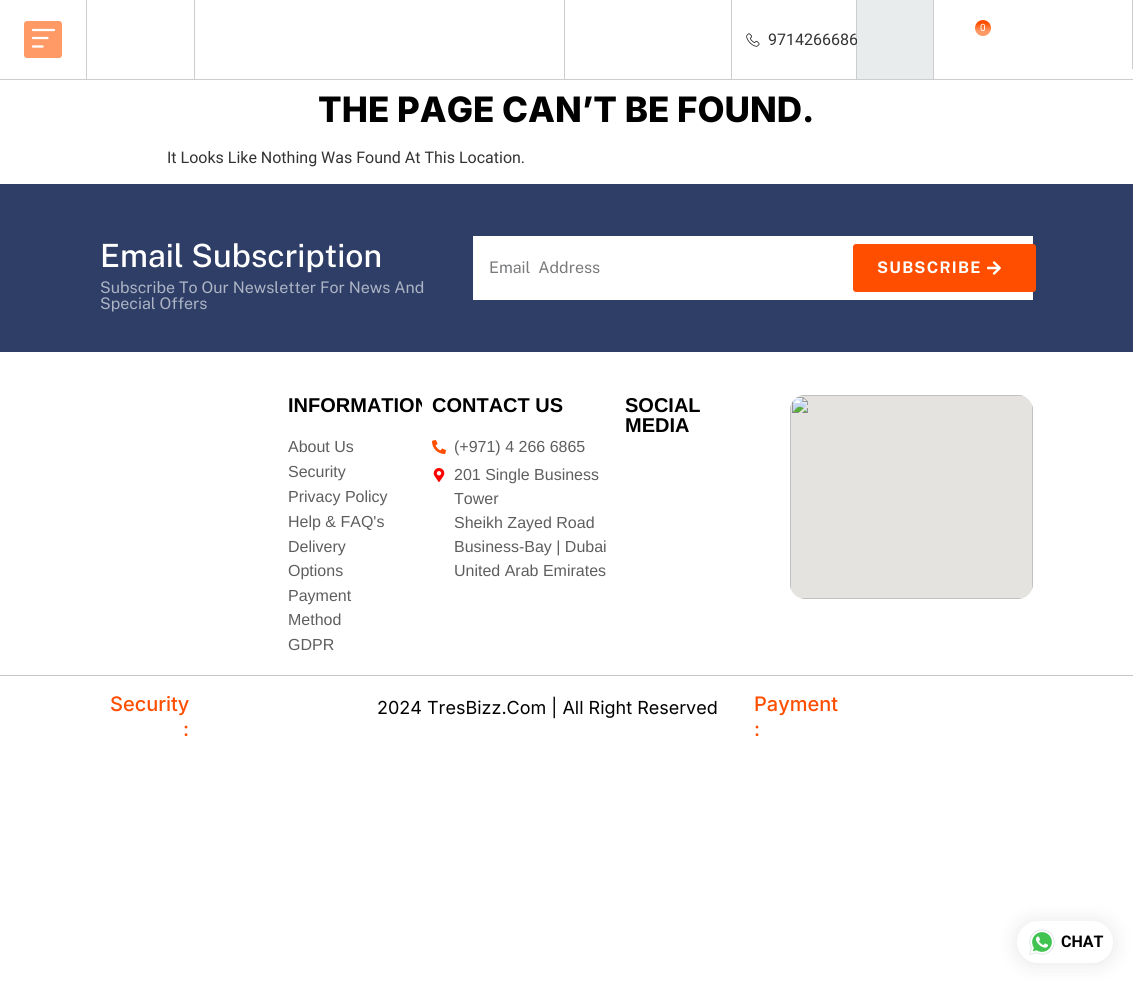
import math
import cairo

surface = cairo.ImageSurface(cairo.FORMAT_RGB24, 1133, 983)
ctx = cairo.Context(surface)
options = cairo.FontOptions()
options.set_hint_metrics(cairo.HINT_METRICS_OFF)
options.set_hint_style(cairo.HINT_STYLE_NONE)
ctx.set_font_options(options)
ctx.set_miter_limit(4)


def spaced_text(x, y, s, letter, word):
    ctx.move_to(x, y)
    for ch in s:
        ctx.show_text(ch)
        ctx.rel_move_to(letter + word * (ch == ' '), 0)


def round_rect(x, y, w, h, r):
    ctx.new_sub_path()
    for i, (u, v) in enumerate([(x + w - r, y + h - r), (x + r, y + h - r), (x + r, y + r), (x + w - r, y + r)]):
        ctx.arc(u, v, r, i * math.pi / 2, (i + 1) * math.pi / 2)
    ctx.close_path()


def shadow(x, y, w, h, r, blur, alpha):
    ctx.push_group_with_content(cairo.CONTENT_ALPHA)
    ctx.set_operator(cairo.OPERATOR_SOURCE)
    for i in range(15, -16, -2):
        e = blur * i / 6
        if min(w, h) + 2 * e > 0:
            ctx.set_source_rgba(0, 0, 0, alpha * math.erfc((i - 1) / 8.5) / 2)
            round_rect(x - e, y - e, w + 2 * e, h + 2 * e, max(0, min(r + e + blur * .6, min(w, h) / 2 + e)))
            ctx.fill()
    ctx.mask(ctx.pop_group())


def picture(path, x, y, w, h):
    ctx.save()
    ctx.set_source_surface(cairo.ImageSurface.create_from_png(path), x, y)
    ctx.rectangle(x, y, w, h)
    ctx.fill()
    ctx.restore()


ctx.set_source_rgb(1, 1, 1)
ctx.paint()
ctx.set_source_rgb(0.804, 0.804, 0.804)
ctx.rectangle(0, 79, 1133, 1)
ctx.fill()
ctx.rectangle(86, 0, 1, 79)
ctx.fill()
ctx.set_source_rgb(1, 0.604, 0.4)
round_rect(24, 21, 38, 37, 3)
ctx.fill()
ctx.new_path()
ctx.move_to(33, 30)
ctx.line_to(54, 30)
ctx.move_to(33, 38)
ctx.line_to(47.5, 38)
ctx.move_to(33, 46.5)
ctx.line_to(42.5, 46.5)
ctx.set_source_rgb(1, 1, 1)
ctx.set_line_width(2.3)
ctx.set_line_cap(cairo.LINE_CAP_ROUND)
ctx.stroke()
ctx.set_source_rgb(0.804, 0.804, 0.804)
ctx.rectangle(194, 0, 1, 79)
ctx.fill()
ctx.rectangle(564, 0, 1, 79)
ctx.fill()
ctx.rectangle(731, 0, 1, 79)
ctx.fill()
ctx.rectangle(856, 0, 1, 79)
ctx.fill()
ctx.select_font_face("Roboto")
ctx.set_font_size(16)
ctx.set_source_rgb(0.2, 0.2, 0.2)
ctx.move_to(768, 45)
ctx.show_text("9714266686")
ctx.set_source_rgb(0.914, 0.922, 0.929)
ctx.rectangle(857, 0, 76, 79)
ctx.fill()
ctx.set_source_rgb(0.804, 0.804, 0.804)
ctx.rectangle(933, 0, 1, 79)
ctx.fill()
ctx.rectangle(1132, 0, 1, 69)
ctx.fill()
gradient = cairo.LinearGradient(983, 20, 983, 36)
gradient.add_color_stop_rgba(0.2, 1, 0.306, 0, 1)
gradient.add_color_stop_rgba(0.7, 1, 0.6, 0.4, 1)
ctx.set_source(gradient)
ctx.arc(983, 28, 8, 0, 2 * math.pi)
ctx.fill()
ctx.set_font_size(10)
ctx.set_source_rgb(1, 1, 1)
ctx.move_to(980, 31)
ctx.show_text("0")
picture("img1.png", 746, 33, 14, 14)
ctx.select_font_face("Inter ExtraBold")
ctx.set_font_size(35)
ctx.set_source_rgb(0, 0, 0)
ctx.move_to(318, 122)
ctx.show_text("THE PAGE CAN’T BE FOUND.")
ctx.select_font_face("Roboto")
ctx.set_font_size(16)
ctx.set_source_rgb(0.2, 0.2, 0.2)
ctx.move_to(167, 163)
ctx.show_text("It Looks Like Nothing Was Found At This Location.")
ctx.set_source_rgb(0.18, 0.243, 0.404)
ctx.rectangle(0, 184, 1133, 168)
ctx.fill()
ctx.select_font_face("Public Sans Medium")
ctx.set_font_size(32)
ctx.set_source_rgb(1, 1, 1)
ctx.move_to(100, 267)
ctx.show_text("Email Subscription")
ctx.select_font_face("Public Sans")
ctx.set_font_size(16)
ctx.set_source_rgb(0.678, 0.706, 0.769)
ctx.move_to(100, 293)
ctx.show_text("Subscribe To Our Newsletter For News And")
ctx.move_to(100, 309)
ctx.show_text("Special Offers")
ctx.set_source_rgb(1, 1, 1)
ctx.rectangle(473, 236, 560, 64)
ctx.fill()
ctx.set_source_rgb(0.475, 0.478, 0.486)
ctx.move_to(489, 273)
ctx.show_text("Email  Address")
ctx.set_source_rgb(1, 0.306, 0)
round_rect(853, 244, 183, 48, 3)
ctx.fill()
ctx.select_font_face("Public Sans", cairo.FONT_SLANT_NORMAL, cairo.FONT_WEIGHT_BOLD)
ctx.set_source_rgb(1, 1, 1)
spaced_text(877, 273, "SUBSCRIBE", 1.25, 0)
picture("img2.png", 987, 261, 14, 14)
ctx.select_font_face("Liberation Sans", cairo.FONT_SLANT_NORMAL, cairo.FONT_WEIGHT_BOLD)
ctx.set_font_size(20)
ctx.set_source_rgb(0, 0, 0)
ctx.move_to(288, 412)
ctx.show_text("INFORMATION")
ctx.select_font_face("Liberation Sans")
ctx.set_font_size(16)
ctx.set_source_rgb(0.369, 0.369, 0.369)
ctx.move_to(288, 452)
ctx.show_text("About Us")
ctx.move_to(288, 477)
ctx.show_text("Security")
ctx.move_to(288, 502)
ctx.show_text("Privacy Policy")
ctx.move_to(288, 527)
ctx.show_text("Help & FAQ's")
ctx.move_to(288, 552)
ctx.show_text("Delivery")
ctx.move_to(288, 576)
ctx.show_text("Options")
ctx.move_to(288, 601)
ctx.show_text("Payment")
ctx.move_to(288, 625)
ctx.show_text("Method")
ctx.move_to(288, 650)
ctx.show_text("GDPR")
ctx.set_source_rgb(1, 1, 1)
ctx.rectangle(422, 398, 6, 14)
ctx.fill()
ctx.select_font_face("Liberation Sans", cairo.FONT_SLANT_NORMAL, cairo.FONT_WEIGHT_BOLD)
ctx.set_font_size(20)
ctx.set_source_rgb(0, 0, 0)
ctx.move_to(432, 412)
ctx.show_text("CONTACT US")
picture("img3.png", 432, 440, 14, 14)
ctx.select_font_face("Liberation Sans")
ctx.set_font_size(16)
ctx.set_source_rgb(0.369, 0.369, 0.369)
ctx.move_to(454, 452)
ctx.show_text("(+971) 4 266 6865")
picture("img4.png", 433, 468, 12, 14)
ctx.move_to(454, 480)
ctx.show_text("201 Single Business")
ctx.move_to(454, 504)
ctx.show_text("Tower")
ctx.move_to(454, 528)
ctx.show_text("Sheikh Zayed Road")
ctx.move_to(454, 552)
ctx.show_text("Business-Bay | Dubai")
ctx.move_to(454, 576)
ctx.show_text("United Arab Emirates")
ctx.select_font_face("Liberation Sans", cairo.FONT_SLANT_NORMAL, cairo.FONT_WEIGHT_BOLD)
ctx.set_font_size(20)
ctx.set_source_rgb(0, 0, 0)
ctx.move_to(625, 412)
ctx.show_text("SOCIAL")
ctx.move_to(625, 432)
ctx.show_text("MEDIA")
picture("img5.png", 790, 395, 243, 204)
ctx.set_source_rgb(0.776, 0.776, 0.776)
ctx.rectangle(0, 675, 1133, 1)
ctx.fill()
ctx.select_font_face("Inter Medium")
ctx.set_source_rgb(1, 0.306, 0)
ctx.move_to(110, 711)
ctx.show_text("Security")
ctx.move_to(183, 736)
ctx.show_text(":")
ctx.select_font_face("Inter")
ctx.set_font_size(18)
ctx.set_source_rgb(0, 0, 0)
ctx.move_to(377, 714)
ctx.show_text("2024 TresBizz.Com | All Right Reserved")
ctx.select_font_face("Inter Medium")
ctx.set_font_size(20)
ctx.set_source_rgb(1, 0.306, 0)
ctx.move_to(754, 711)
ctx.show_text("Payment")
ctx.move_to(754, 736)
ctx.show_text(":")
ctx.set_source_rgb(0, 0, 0)
shadow(1017, 922, 96, 42, 21, 10, 0.1)
ctx.set_source_rgb(1, 1, 1)
round_rect(1017, 921, 96, 42, 21)
ctx.fill()
picture("img6.png", 1029, 929, 26, 26)
ctx.select_font_face("Roboto", cairo.FONT_SLANT_NORMAL, cairo.FONT_WEIGHT_BOLD)
ctx.set_font_size(16)
ctx.set_source_rgb(0, 0, 0)
ctx.move_to(1061, 947)
ctx.show_text("CHAT")
surface.write_to_png("page.png")
